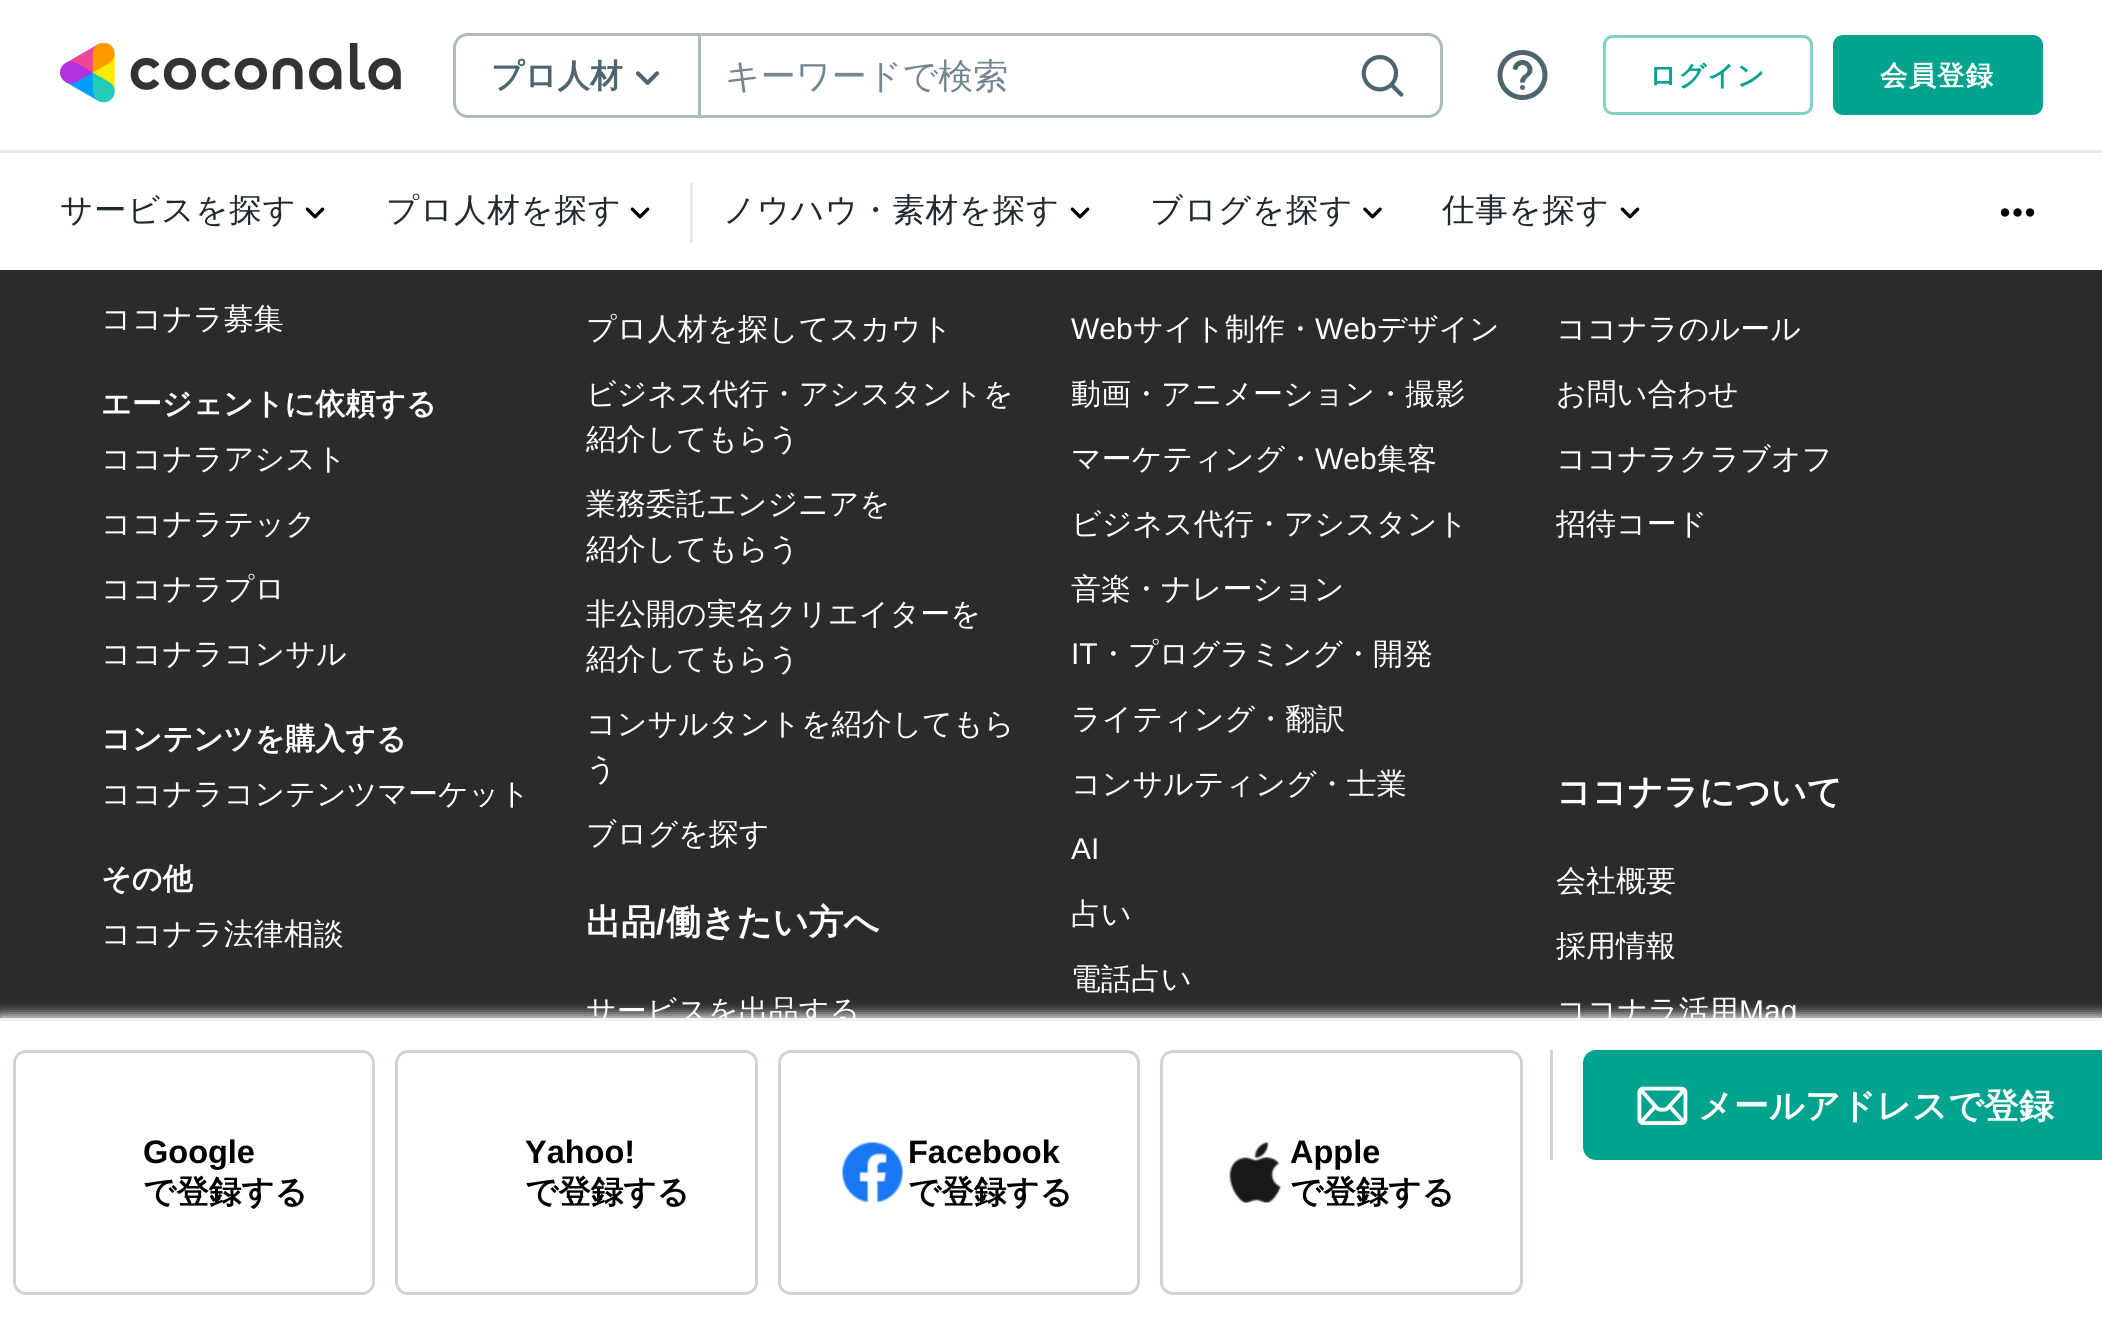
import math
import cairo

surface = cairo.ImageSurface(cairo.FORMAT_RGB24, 2102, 1324)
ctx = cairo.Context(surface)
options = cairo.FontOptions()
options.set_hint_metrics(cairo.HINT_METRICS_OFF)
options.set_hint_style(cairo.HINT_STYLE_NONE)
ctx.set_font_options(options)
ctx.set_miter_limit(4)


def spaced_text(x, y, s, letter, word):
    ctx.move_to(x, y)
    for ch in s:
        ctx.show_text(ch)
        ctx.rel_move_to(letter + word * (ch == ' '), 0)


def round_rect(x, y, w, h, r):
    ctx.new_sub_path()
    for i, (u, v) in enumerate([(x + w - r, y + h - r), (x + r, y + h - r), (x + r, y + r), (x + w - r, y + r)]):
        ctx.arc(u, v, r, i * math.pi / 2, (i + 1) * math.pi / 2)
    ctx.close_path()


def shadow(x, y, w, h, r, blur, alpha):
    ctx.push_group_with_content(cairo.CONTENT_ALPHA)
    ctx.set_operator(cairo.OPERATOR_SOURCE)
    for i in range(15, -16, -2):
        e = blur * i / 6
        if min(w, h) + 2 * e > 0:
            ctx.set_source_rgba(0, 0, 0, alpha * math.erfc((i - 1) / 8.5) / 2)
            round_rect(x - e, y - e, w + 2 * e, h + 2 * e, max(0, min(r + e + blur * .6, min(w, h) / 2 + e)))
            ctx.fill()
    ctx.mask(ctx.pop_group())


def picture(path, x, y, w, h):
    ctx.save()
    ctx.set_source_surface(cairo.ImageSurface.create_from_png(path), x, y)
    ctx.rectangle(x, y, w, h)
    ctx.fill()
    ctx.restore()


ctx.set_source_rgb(0.169, 0.169, 0.169)
ctx.paint()
ctx.set_source_rgb(1, 1, 1)
ctx.rectangle(0, 0, 2102, 270)
ctx.fill()
picture("img1.png", 60, 43, 341, 60)
round_rect(454.5, 34.5, 987, 82, 13.5)
ctx.set_source_rgb(0.675, 0.733, 0.737)
ctx.set_line_width(3)
ctx.stroke()
ctx.select_font_face("WenQuanYi Zen Hei", cairo.FONT_SLANT_NORMAL, cairo.FONT_WEIGHT_BOLD)
ctx.set_font_size(32.5)
ctx.set_source_rgb(0.302, 0.396, 0.427)
ctx.move_to(491, 87)
ctx.show_text("プロ人材")
picture("img2.png", 635, 71, 25, 14)
ctx.set_source_rgb(0.675, 0.733, 0.737)
ctx.rectangle(698, 35, 3, 80)
ctx.fill()
ctx.select_font_face("WenQuanYi Zen Hei Medium")
ctx.set_font_size(35)
ctx.set_source_rgb(0.443, 0.529, 0.565)
ctx.move_to(725, 88)
ctx.show_text("キーワードで検索")
picture("img3.png", 1361, 55, 43, 42)
picture("img4.png", 1497, 50, 51, 50)
round_rect(1604.5, 36.5, 207, 77, 8.5)
ctx.set_source_rgb(0.502, 0.82, 0.776)
ctx.stroke()
ctx.select_font_face("WenQuanYi Zen Hei", cairo.FONT_SLANT_NORMAL, cairo.FONT_WEIGHT_BOLD)
ctx.set_font_size(27.5)
ctx.set_source_rgb(0, 0.639, 0.553)
spaced_text(1649, 85, "ログイン", 1, 0)
round_rect(1834.5, 36.5, 207, 77, 8.5)
ctx.fill_preserve()
ctx.stroke()
ctx.set_source_rgb(1, 1, 1)
spaced_text(1880, 85, "会員登録", 1, 0)
ctx.set_source_rgb(0.906, 0.918, 0.922)
ctx.rectangle(0, 150, 2102, 3)
ctx.fill()
ctx.select_font_face("WenQuanYi Zen Hei Medium")
ctx.set_font_size(32.5)
ctx.set_source_rgb(0.125, 0.165, 0.18)
spaced_text(60, 221, "サービスを探す", 0.75, 0)
picture("img5.png", 305, 207, 20, 12)
spaced_text(386, 221, "プロ人材を探す", 0.75, 0)
picture("img5.png", 630, 207, 20, 12)
ctx.set_source_rgb(0.906, 0.918, 0.922)
ctx.rectangle(690, 183, 3, 60)
ctx.fill()
ctx.set_source_rgb(0.125, 0.165, 0.18)
spaced_text(723, 221, "ノウハウ・素材を探す", 0.75, 0)
picture("img5.png", 1070, 207, 20, 12)
spaced_text(1150, 221, "ブログを探す", 0.75, 0)
picture("img6.png", 1363, 207, 19, 12)
spaced_text(1442, 221, "仕事を探す", 0.75, 0)
picture("img5.png", 1620, 207, 20, 12)
picture("img7.png", 2000, 208, 35, 9)
ctx.set_font_size(30)
ctx.set_source_rgb(1, 1, 1)
ctx.move_to(101, 329)
ctx.show_text("ココナラ募集")
ctx.select_font_face("WenQuanYi Zen Hei", cairo.FONT_SLANT_NORMAL, cairo.FONT_WEIGHT_BOLD)
ctx.move_to(101, 414)
ctx.show_text("エージェントに依頼する")
ctx.select_font_face("WenQuanYi Zen Hei Medium")
ctx.move_to(101, 469)
ctx.show_text("ココナラアシスト")
ctx.move_to(101, 534)
ctx.show_text("ココナラテック")
ctx.move_to(101, 599)
ctx.show_text("ココナラプロ")
ctx.move_to(101, 664)
ctx.show_text("ココナラコンサル")
ctx.select_font_face("WenQuanYi Zen Hei", cairo.FONT_SLANT_NORMAL, cairo.FONT_WEIGHT_BOLD)
ctx.move_to(101, 749)
ctx.show_text("コンテンツを購入する")
ctx.select_font_face("WenQuanYi Zen Hei Medium")
ctx.move_to(101, 804)
ctx.show_text("ココナラコンテンツマーケット")
ctx.select_font_face("WenQuanYi Zen Hei", cairo.FONT_SLANT_NORMAL, cairo.FONT_WEIGHT_BOLD)
ctx.move_to(101, 889)
ctx.show_text("その他")
ctx.select_font_face("WenQuanYi Zen Hei Medium")
ctx.move_to(101, 944)
ctx.show_text("ココナラ法律相談")
ctx.move_to(586, 339)
ctx.show_text("プロ人材を探してスカウト")
ctx.move_to(586, 404)
ctx.show_text("ビジネス代行・アシスタントを")
ctx.move_to(586, 449)
ctx.show_text("紹介してもらう")
ctx.move_to(586, 514)
ctx.show_text("業務委託エンジニアを")
ctx.move_to(586, 559)
ctx.show_text("紹介してもらう")
ctx.move_to(586, 624)
ctx.show_text("非公開の実名クリエイターを")
ctx.move_to(586, 669)
ctx.show_text("紹介してもらう")
ctx.move_to(586, 734)
ctx.show_text("コンサルタントを紹介してもら")
ctx.move_to(586, 779)
ctx.show_text("う")
ctx.move_to(586, 844)
ctx.show_text("ブログを探す")
ctx.select_font_face("Liberation Sans")
ctx.move_to(1071, 339)
ctx.show_text("Web")
ctx.select_font_face("WenQuanYi Zen Hei Medium")
ctx.move_to(1133, 339)
ctx.show_text("サイト制作・")
ctx.select_font_face("Liberation Sans")
ctx.move_to(1315, 339)
ctx.show_text("Web")
ctx.select_font_face("WenQuanYi Zen Hei Medium")
ctx.move_to(1377, 339)
ctx.show_text("デザイン")
ctx.move_to(1071, 404)
ctx.show_text("動画・アニメーション・撮影")
ctx.move_to(1071, 469)
ctx.show_text("マーケティング・")
ctx.select_font_face("Liberation Sans")
ctx.move_to(1315, 469)
ctx.show_text("Web")
ctx.select_font_face("WenQuanYi Zen Hei Medium")
ctx.move_to(1377, 469)
ctx.show_text("集客")
ctx.move_to(1071, 534)
ctx.show_text("ビジネス代行・アシスタント")
ctx.move_to(1071, 599)
ctx.show_text("音楽・ナレーション")
ctx.select_font_face("Liberation Sans")
ctx.move_to(1071, 664)
ctx.show_text("IT")
ctx.select_font_face("WenQuanYi Zen Hei Medium")
ctx.move_to(1098, 664)
ctx.show_text("・プログラミング・開発")
ctx.move_to(1071, 729)
ctx.show_text("ライティング・翻訳")
ctx.move_to(1071, 794)
ctx.show_text("コンサルティング・士業")
ctx.select_font_face("Liberation Sans")
ctx.move_to(1071, 859)
ctx.show_text("AI")
ctx.select_font_face("WenQuanYi Zen Hei Medium")
ctx.move_to(1071, 924)
ctx.show_text("占い")
ctx.move_to(1071, 989)
ctx.show_text("電話占い")
ctx.move_to(1556, 339)
ctx.show_text("ココナラのルール")
ctx.move_to(1556, 404)
ctx.show_text("お問い合わせ")
ctx.move_to(1556, 469)
ctx.show_text("ココナラクラブオフ")
ctx.move_to(1556, 534)
ctx.show_text("招待コード")
ctx.select_font_face("WenQuanYi Zen Hei", cairo.FONT_SLANT_NORMAL, cairo.FONT_WEIGHT_BOLD)
ctx.set_font_size(35)
ctx.move_to(586, 934)
ctx.show_text("出品")
ctx.select_font_face("Liberation Sans", cairo.FONT_SLANT_NORMAL, cairo.FONT_WEIGHT_BOLD)
ctx.move_to(656, 934)
ctx.show_text("/")
ctx.select_font_face("WenQuanYi Zen Hei", cairo.FONT_SLANT_NORMAL, cairo.FONT_WEIGHT_BOLD)
ctx.move_to(666, 934)
ctx.show_text("働きたい方へ")
ctx.select_font_face("WenQuanYi Zen Hei Medium")
ctx.set_font_size(30)
ctx.move_to(586, 1021)
ctx.show_text("サービスを出品する")
ctx.select_font_face("WenQuanYi Zen Hei", cairo.FONT_SLANT_NORMAL, cairo.FONT_WEIGHT_BOLD)
ctx.set_font_size(35)
ctx.move_to(1556, 804)
ctx.show_text("ココナラについて")
ctx.select_font_face("WenQuanYi Zen Hei Medium")
ctx.set_font_size(30)
ctx.move_to(1556, 891)
ctx.show_text("会社概要")
ctx.move_to(1556, 956)
ctx.show_text("採用情報")
ctx.move_to(1556, 1021)
ctx.show_text("ココナラ活用")
ctx.select_font_face("Liberation Sans")
ctx.move_to(1739, 1021)
ctx.show_text("Mag")
ctx.set_source_rgb(0.953, 0.957, 0.961)
shadow(0, 1015, 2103, 308, 0, 6, 1)
ctx.set_source_rgb(1, 1, 1)
ctx.rectangle(0, 1021, 2102, 303)
ctx.fill()
ctx.set_source_rgb(0.953, 0.957, 0.961)
ctx.rectangle(0, 1018, 2102, 3)
ctx.fill()
ctx.set_source_rgb(0.808, 0.831, 0.839)
ctx.rectangle(1550, 1050, 3, 110)
ctx.fill()
ctx.set_source_rgb(0, 0.639, 0.553)
round_rect(1583, 1050, 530, 110, 13)
ctx.fill()
picture("img8.png", 1637, 1086, 51, 40)
ctx.select_font_face("WenQuanYi Zen Hei", cairo.FONT_SLANT_NORMAL, cairo.FONT_WEIGHT_BOLD)
ctx.set_font_size(35)
ctx.set_source_rgb(1, 1, 1)
ctx.move_to(1698, 1118)
ctx.show_text("メールアドレスで登録")
round_rect(14.5, 1051.5, 359, 242, 11.5)
ctx.set_source_rgb(0.808, 0.831, 0.839)
ctx.stroke()
ctx.select_font_face("Liberation Sans", cairo.FONT_SLANT_NORMAL, cairo.FONT_WEIGHT_BOLD)
ctx.set_font_size(32.5)
ctx.set_source_rgb(0, 0, 0)
ctx.move_to(143, 1163)
ctx.show_text("Google")
ctx.select_font_face("WenQuanYi Zen Hei", cairo.FONT_SLANT_NORMAL, cairo.FONT_WEIGHT_BOLD)
ctx.move_to(143, 1203)
ctx.show_text("で登録する")
round_rect(396.5, 1051.5, 360, 242, 11.5)
ctx.set_source_rgb(0.808, 0.831, 0.839)
ctx.stroke()
ctx.select_font_face("Liberation Sans", cairo.FONT_SLANT_NORMAL, cairo.FONT_WEIGHT_BOLD)
ctx.set_source_rgb(0, 0, 0)
ctx.move_to(525, 1163)
ctx.show_text("Yahoo!")
ctx.select_font_face("WenQuanYi Zen Hei", cairo.FONT_SLANT_NORMAL, cairo.FONT_WEIGHT_BOLD)
ctx.move_to(525, 1203)
ctx.show_text("で登録する")
round_rect(779.5, 1051.5, 359, 242, 11.5)
ctx.set_source_rgb(0.808, 0.831, 0.839)
ctx.stroke()
picture("img9.png", 842, 1142, 61, 61)
ctx.select_font_face("Liberation Sans", cairo.FONT_SLANT_NORMAL, cairo.FONT_WEIGHT_BOLD)
ctx.set_source_rgb(0, 0, 0)
ctx.move_to(908, 1163)
ctx.show_text("Facebook")
ctx.select_font_face("WenQuanYi Zen Hei", cairo.FONT_SLANT_NORMAL, cairo.FONT_WEIGHT_BOLD)
ctx.move_to(908, 1203)
ctx.show_text("で登録する")
round_rect(1161.5, 1051.5, 360, 242, 11.5)
ctx.set_source_rgb(0.808, 0.831, 0.839)
ctx.stroke()
picture("img10.png", 1229, 1142, 53, 61)
ctx.select_font_face("Liberation Sans", cairo.FONT_SLANT_NORMAL, cairo.FONT_WEIGHT_BOLD)
ctx.set_source_rgb(0, 0, 0)
ctx.move_to(1290, 1163)
ctx.show_text("Apple")
ctx.select_font_face("WenQuanYi Zen Hei", cairo.FONT_SLANT_NORMAL, cairo.FONT_WEIGHT_BOLD)
ctx.move_to(1290, 1203)
ctx.show_text("で登録する")
surface.write_to_png("page.png")
